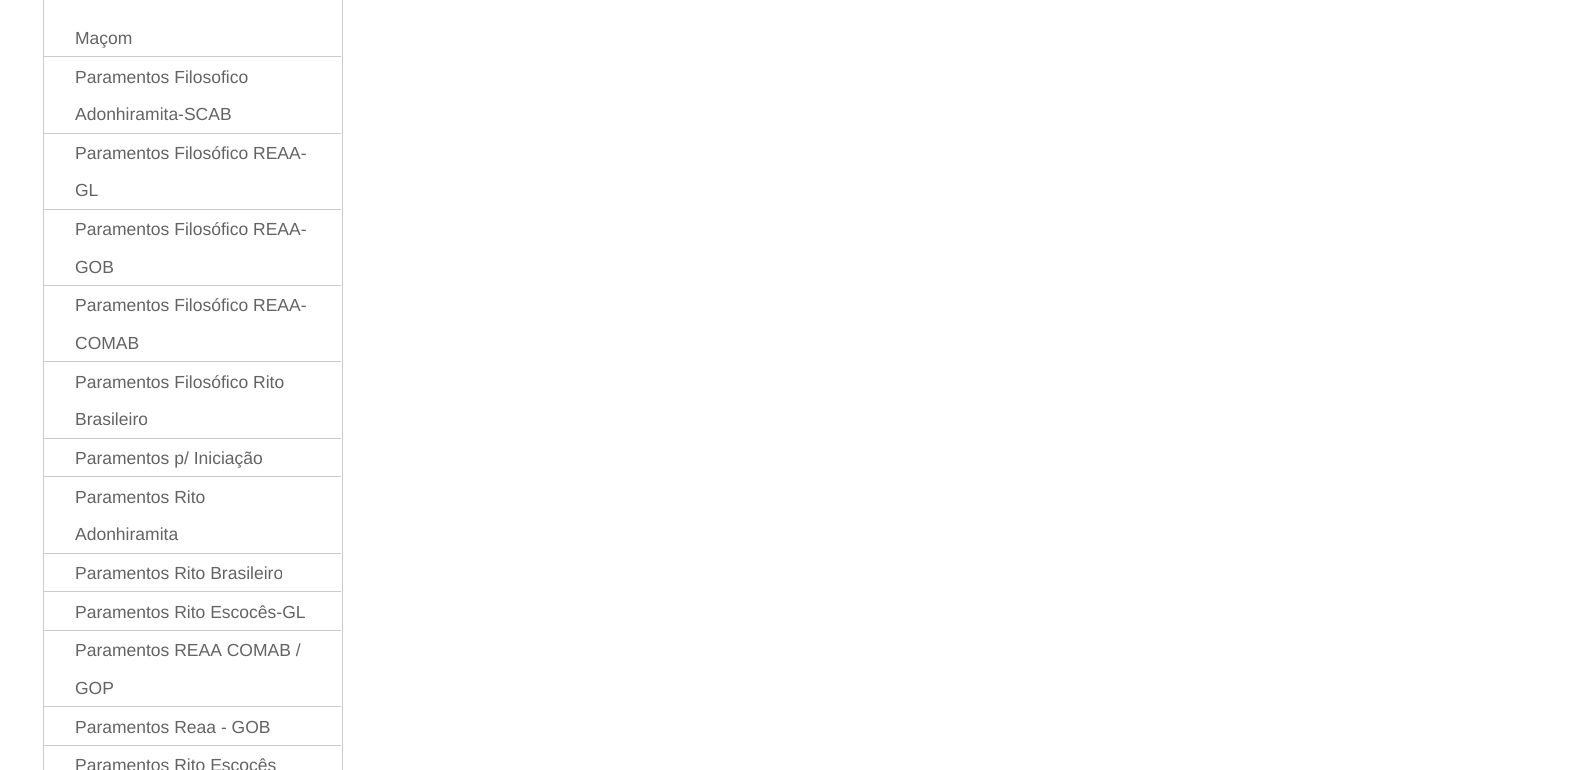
import math
import cairo

surface = cairo.ImageSurface(cairo.FORMAT_RGB24, 1585, 770)
ctx = cairo.Context(surface)
options = cairo.FontOptions()
options.set_hint_metrics(cairo.HINT_METRICS_OFF)
options.set_hint_style(cairo.HINT_STYLE_NONE)
ctx.set_font_options(options)
ctx.set_miter_limit(4)


ctx.set_source_rgb(1, 1, 1)
ctx.paint()
ctx.rectangle(43.5, -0.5, 299, 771)
ctx.set_source_rgb(0.8, 0.8, 0.8)
ctx.set_line_width(1)
ctx.stroke()
ctx.rectangle(44, 56, 297, 1)
ctx.fill()
ctx.select_font_face("Liberation Sans")
ctx.set_font_size(17.5)
ctx.set_source_rgb(0.388, 0.388, 0.388)
ctx.move_to(75, 44)
ctx.show_text("Maçom")
ctx.set_source_rgb(0.8, 0.8, 0.8)
ctx.rectangle(44, 133, 297, 1)
ctx.fill()
ctx.set_source_rgb(0.388, 0.388, 0.388)
ctx.move_to(75, 83)
ctx.show_text("Paramentos Filosofico")
ctx.move_to(75, 120)
ctx.show_text("Adonhiramita-SCAB")
ctx.set_source_rgb(0.8, 0.8, 0.8)
ctx.rectangle(44, 209, 297, 1)
ctx.fill()
ctx.set_source_rgb(0.388, 0.388, 0.388)
ctx.move_to(75, 159)
ctx.show_text("Paramentos Filosófico REAA-")
ctx.move_to(75, 196)
ctx.show_text("GL")
ctx.set_source_rgb(0.8, 0.8, 0.8)
ctx.rectangle(44, 285, 297, 1)
ctx.fill()
ctx.set_source_rgb(0.388, 0.388, 0.388)
ctx.move_to(75, 235)
ctx.show_text("Paramentos Filosófico REAA-")
ctx.move_to(75, 273)
ctx.show_text("GOB")
ctx.set_source_rgb(0.8, 0.8, 0.8)
ctx.rectangle(44, 361, 297, 1)
ctx.fill()
ctx.set_source_rgb(0.388, 0.388, 0.388)
ctx.move_to(75, 311)
ctx.show_text("Paramentos Filosófico REAA-")
ctx.move_to(75, 349)
ctx.show_text("COMAB")
ctx.set_source_rgb(0.8, 0.8, 0.8)
ctx.rectangle(44, 438, 297, 1)
ctx.fill()
ctx.set_source_rgb(0.388, 0.388, 0.388)
ctx.move_to(75, 388)
ctx.show_text("Paramentos Filosófico Rito")
ctx.move_to(75, 425)
ctx.show_text("Brasileiro")
ctx.set_source_rgb(0.8, 0.8, 0.8)
ctx.rectangle(44, 476, 297, 1)
ctx.fill()
ctx.set_source_rgb(0.388, 0.388, 0.388)
ctx.move_to(75, 464)
ctx.show_text("Paramentos p/ Iniciação")
ctx.set_source_rgb(0.8, 0.8, 0.8)
ctx.rectangle(44, 553, 297, 1)
ctx.fill()
ctx.set_source_rgb(0.388, 0.388, 0.388)
ctx.move_to(75, 503)
ctx.show_text("Paramentos Rito")
ctx.move_to(75, 540)
ctx.show_text("Adonhiramita")
ctx.set_source_rgb(0.8, 0.8, 0.8)
ctx.rectangle(44, 591, 297, 1)
ctx.fill()
ctx.set_source_rgb(0.388, 0.388, 0.388)
ctx.move_to(75, 579)
ctx.show_text("Paramentos Rito Brasileiro")
ctx.set_source_rgb(0.8, 0.8, 0.8)
ctx.rectangle(44, 630, 297, 1)
ctx.fill()
ctx.set_source_rgb(0.388, 0.388, 0.388)
ctx.move_to(75, 618)
ctx.show_text("Paramentos Rito Escocês-GL")
ctx.set_source_rgb(0.8, 0.8, 0.8)
ctx.rectangle(44, 706, 297, 1)
ctx.fill()
ctx.set_source_rgb(0.388, 0.388, 0.388)
ctx.move_to(75, 656)
ctx.show_text("Paramentos REAA COMAB /")
ctx.move_to(75, 694)
ctx.show_text("GOP")
ctx.set_source_rgb(0.8, 0.8, 0.8)
ctx.rectangle(44, 745, 297, 1)
ctx.fill()
ctx.set_source_rgb(0.388, 0.388, 0.388)
ctx.move_to(75, 733)
ctx.show_text("Paramentos Reaa - GOB")
ctx.move_to(75, 771)
ctx.show_text("Paramentos Rito Escocês")
surface.write_to_png("page.png")
